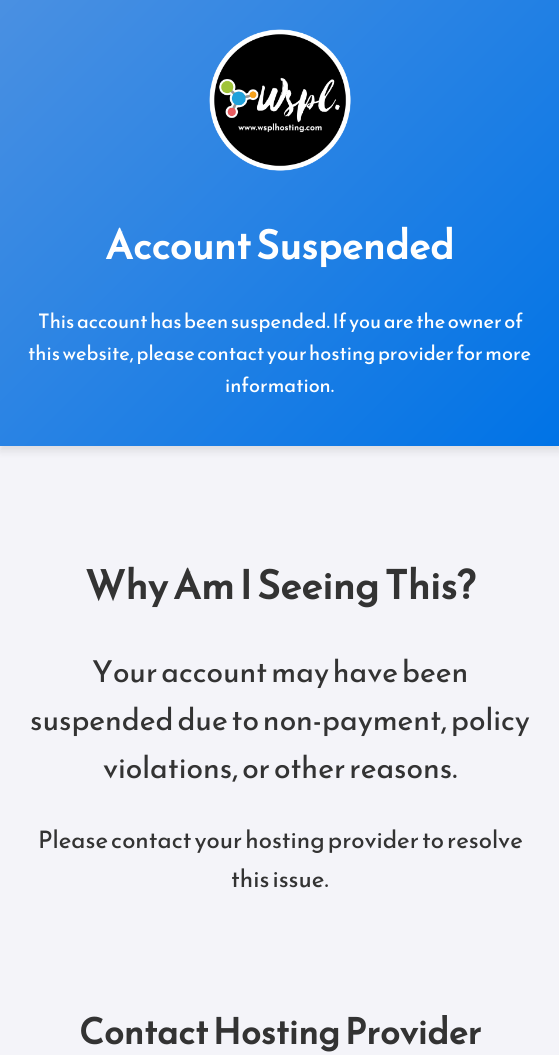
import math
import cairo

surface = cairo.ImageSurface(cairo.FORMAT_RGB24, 559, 1055)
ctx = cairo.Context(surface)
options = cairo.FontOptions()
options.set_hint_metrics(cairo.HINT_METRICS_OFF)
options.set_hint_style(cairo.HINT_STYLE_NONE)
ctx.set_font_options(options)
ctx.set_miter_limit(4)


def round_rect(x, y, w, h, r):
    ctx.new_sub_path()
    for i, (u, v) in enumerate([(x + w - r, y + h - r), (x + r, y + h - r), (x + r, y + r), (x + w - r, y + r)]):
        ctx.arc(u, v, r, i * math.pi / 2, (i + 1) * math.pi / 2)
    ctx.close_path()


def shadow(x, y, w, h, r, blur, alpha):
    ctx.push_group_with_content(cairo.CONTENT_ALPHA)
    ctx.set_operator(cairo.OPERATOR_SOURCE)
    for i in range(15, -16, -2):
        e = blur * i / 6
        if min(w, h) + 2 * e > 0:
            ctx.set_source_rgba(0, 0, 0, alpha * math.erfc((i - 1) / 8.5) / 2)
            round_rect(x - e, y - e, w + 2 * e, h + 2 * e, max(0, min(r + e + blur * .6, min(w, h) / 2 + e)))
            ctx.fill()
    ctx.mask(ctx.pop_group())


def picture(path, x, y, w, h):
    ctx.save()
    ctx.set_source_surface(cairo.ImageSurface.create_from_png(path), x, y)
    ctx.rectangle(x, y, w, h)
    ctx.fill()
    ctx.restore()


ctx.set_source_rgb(0.957, 0.957, 0.976)
ctx.paint()
ctx.set_source_rgb(0, 0, 0)
shadow(0, 5, 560, 446, 0, 4, 0.1)
gradient = cairo.LinearGradient(28, -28, 532, 475)
gradient.add_color_stop_rgba(0, 0.29, 0.565, 0.886, 1)
gradient.add_color_stop_rgba(1, 0, 0.451, 0.902, 1)
ctx.set_source(gradient)
ctx.rectangle(0, 0, 559, 446)
ctx.fill()
picture("img1.png", 209, 29, 142, 142)
ctx.select_font_face("Reem Kufi", cairo.FONT_SLANT_NORMAL, cairo.FONT_WEIGHT_BOLD)
ctx.set_font_size(40)
ctx.set_source_rgb(1, 1, 1)
ctx.move_to(105, 259)
ctx.show_text("Account Suspended")
ctx.select_font_face("Reem Kufi")
ctx.set_font_size(20)
ctx.move_to(38, 328)
ctx.show_text("This account has been suspended. If you are the owner of")
ctx.move_to(28, 360)
ctx.show_text("this website, please contact your hosting provider for more")
ctx.move_to(225, 392)
ctx.show_text("information.")
ctx.select_font_face("Reem Kufi", cairo.FONT_SLANT_NORMAL, cairo.FONT_WEIGHT_BOLD)
ctx.set_font_size(40)
ctx.set_source_rgb(0.2, 0.2, 0.2)
ctx.move_to(85, 599)
ctx.show_text("Why Am I Seeing This?")
ctx.select_font_face("Reem Kufi")
ctx.set_font_size(30)
ctx.move_to(92, 682)
ctx.show_text("Your account may have been")
ctx.move_to(30, 730)
ctx.show_text("suspended due to non-payment, policy")
ctx.move_to(103, 778)
ctx.show_text("violations, or other reasons.")
ctx.set_font_size(24)
ctx.move_to(38, 848)
ctx.show_text("Please contact your hosting provider to resolve")
ctx.move_to(231, 887)
ctx.show_text("this issue.")
ctx.select_font_face("Reem Kufi", cairo.FONT_SLANT_NORMAL, cairo.FONT_WEIGHT_BOLD)
ctx.set_font_size(36)
ctx.move_to(79, 1044)
ctx.show_text("Contact Hosting Provider")
surface.write_to_png("page.png")
